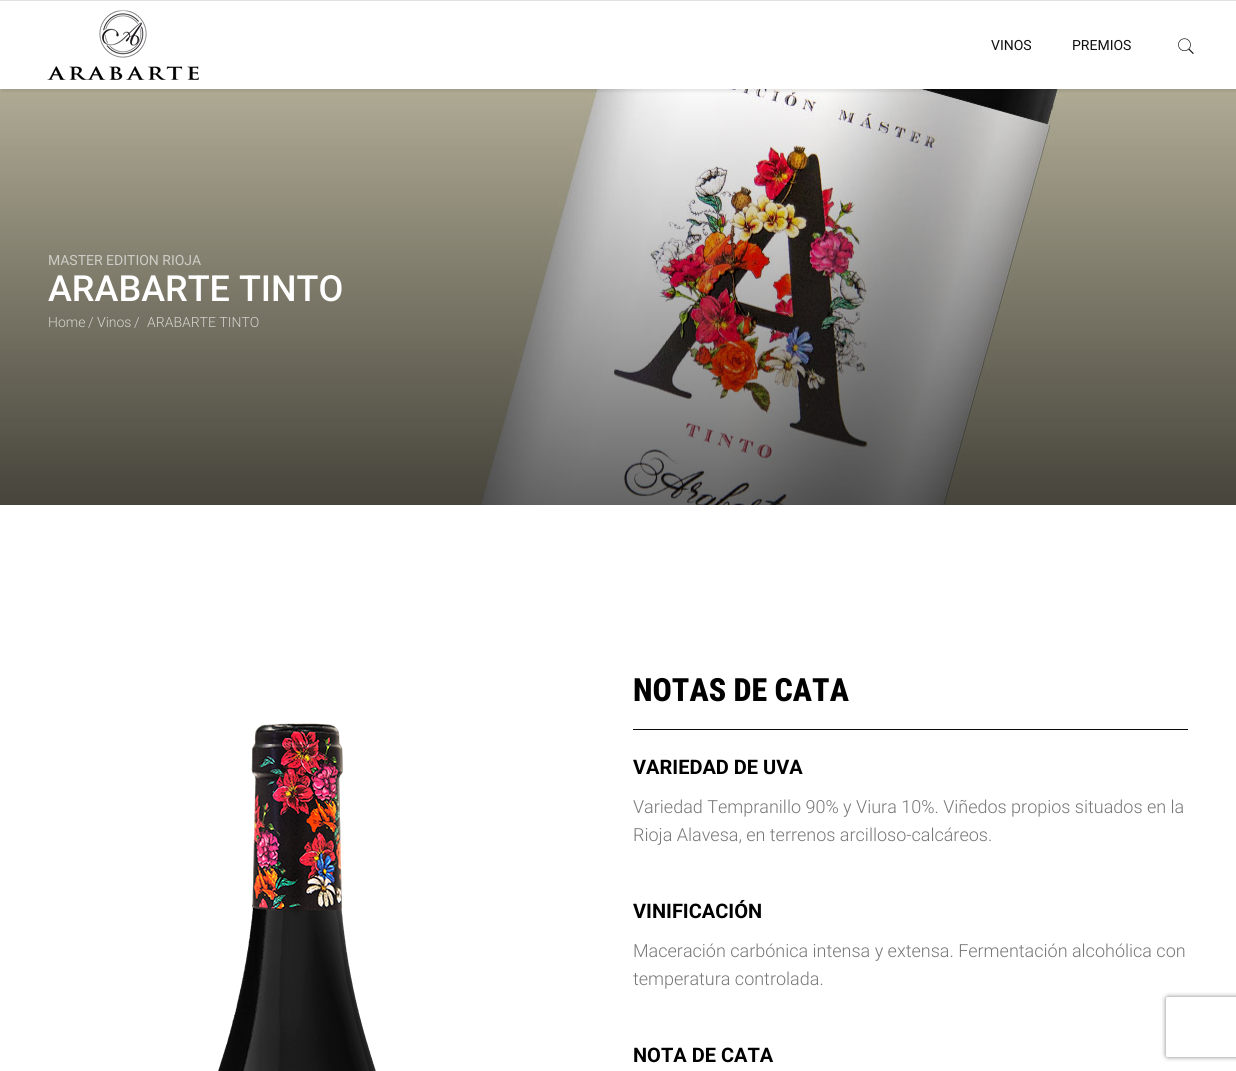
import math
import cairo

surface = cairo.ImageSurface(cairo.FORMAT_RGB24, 1236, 1071)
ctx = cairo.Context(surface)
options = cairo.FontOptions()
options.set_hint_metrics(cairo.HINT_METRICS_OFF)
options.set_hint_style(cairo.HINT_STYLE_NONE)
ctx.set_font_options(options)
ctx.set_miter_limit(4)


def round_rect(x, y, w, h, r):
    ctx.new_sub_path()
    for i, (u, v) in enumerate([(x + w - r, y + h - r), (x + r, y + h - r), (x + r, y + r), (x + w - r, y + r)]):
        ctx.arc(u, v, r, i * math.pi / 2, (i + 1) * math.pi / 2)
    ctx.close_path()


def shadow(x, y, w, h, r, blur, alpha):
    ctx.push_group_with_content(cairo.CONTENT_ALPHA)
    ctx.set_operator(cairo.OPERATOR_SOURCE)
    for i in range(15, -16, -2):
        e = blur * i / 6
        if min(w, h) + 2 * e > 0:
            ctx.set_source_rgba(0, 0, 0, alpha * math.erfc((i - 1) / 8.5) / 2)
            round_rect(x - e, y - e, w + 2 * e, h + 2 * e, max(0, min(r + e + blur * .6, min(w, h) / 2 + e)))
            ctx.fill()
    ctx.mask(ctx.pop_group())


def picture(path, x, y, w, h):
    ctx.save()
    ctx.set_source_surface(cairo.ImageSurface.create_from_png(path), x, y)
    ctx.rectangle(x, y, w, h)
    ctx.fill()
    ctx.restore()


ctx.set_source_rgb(1, 1, 1)
ctx.paint()
picture("img3.png", 0, 89, 1236, 416)
ctx.save()
ctx.rectangle(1, 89, 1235, 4)
ctx.clip()
ctx.set_source_rgb(0, 0, 0)
shadow(2, 2, 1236, 89, 0, 2, 0.1)
ctx.restore()
ctx.set_source_rgb(0.882, 0.882, 0.882)
ctx.rectangle(0, 0, 1236, 1)
ctx.fill()
picture("img1.png", 47, 10, 152, 70)
ctx.select_font_face("Roboto")
ctx.set_font_size(14)
ctx.set_source_rgb(0.067, 0.067, 0.067)
ctx.move_to(991, 50)
ctx.show_text("VINOS")
ctx.move_to(1072, 50)
ctx.show_text("PREMIOS")
picture("img2.png", 1178, 38, 16, 16)
ctx.set_source_rgb(0.808, 0.8, 0.776)
ctx.move_to(48, 265)
ctx.show_text("MASTER EDITION RIOJA")
ctx.select_font_face("Roboto Medium")
ctx.set_font_size(36)
ctx.set_source_rgb(1, 1, 1)
ctx.move_to(48, 301)
ctx.show_text("ARABARTE TINTO")
ctx.select_font_face("Roboto Light")
ctx.set_font_size(14)
ctx.set_source_rgb(0.835, 0.831, 0.816)
ctx.move_to(48, 327)
ctx.show_text("Home")
ctx.move_to(88, 327)
ctx.show_text("/")
ctx.move_to(97, 327)
ctx.show_text("Vinos")
ctx.move_to(134, 327)
ctx.show_text("/")
ctx.move_to(147, 327)
ctx.show_text("ARABARTE TINTO")
picture("img4.png", 218, 723, 158, 348)
ctx.select_font_face("Roboto Condensed ExtraBold")
ctx.set_font_size(32)
ctx.set_source_rgb(0, 0, 0)
ctx.move_to(633, 701)
ctx.show_text("NOTAS DE CATA")
ctx.set_source_rgb(0.039, 0.039, 0.039)
ctx.rectangle(633, 729, 555, 1)
ctx.fill()
ctx.select_font_face("Roboto", cairo.FONT_SLANT_NORMAL, cairo.FONT_WEIGHT_BOLD)
ctx.set_font_size(20)
ctx.set_source_rgb(0, 0, 0)
ctx.move_to(633, 774)
ctx.show_text("VARIEDAD DE UVA")
ctx.select_font_face("Roboto Light")
ctx.set_font_size(18)
ctx.set_source_rgb(0.467, 0.467, 0.467)
ctx.move_to(633, 813)
ctx.show_text("Variedad Tempranillo 90% y Viura 10%. Viñedos propios situados en la")
ctx.move_to(633, 841)
ctx.show_text("Rioja Alavesa, en terrenos arcilloso-calcáreos.")
ctx.select_font_face("Roboto", cairo.FONT_SLANT_NORMAL, cairo.FONT_WEIGHT_BOLD)
ctx.set_font_size(20)
ctx.set_source_rgb(0, 0, 0)
ctx.move_to(633, 918)
ctx.show_text("VINIFICACIÓN")
ctx.select_font_face("Roboto Light")
ctx.set_font_size(18)
ctx.set_source_rgb(0.467, 0.467, 0.467)
ctx.move_to(633, 957)
ctx.show_text("Maceración carbónica intensa y extensa. Fermentación alcohólica con")
ctx.move_to(633, 985)
ctx.show_text("temperatura controlada.")
ctx.select_font_face("Roboto", cairo.FONT_SLANT_NORMAL, cairo.FONT_WEIGHT_BOLD)
ctx.set_font_size(20)
ctx.set_source_rgb(0, 0, 0)
ctx.move_to(633, 1062)
ctx.show_text("NOTA DE CATA")
ctx.save()
ctx.set_fill_rule(cairo.FILL_RULE_EVEN_ODD)
ctx.new_path()
ctx.move_to(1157, 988)
ctx.line_to(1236, 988)
ctx.line_to(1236, 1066)
ctx.line_to(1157, 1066)
ctx.close_path()
ctx.move_to(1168, 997)
ctx.line_to(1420, 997)
ctx.curve_to(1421, 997, 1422, 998, 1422, 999)
ctx.line_to(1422, 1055)
ctx.curve_to(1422, 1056, 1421, 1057, 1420, 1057)
ctx.line_to(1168, 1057)
ctx.curve_to(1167, 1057, 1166, 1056, 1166, 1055)
ctx.line_to(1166, 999)
ctx.curve_to(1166, 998, 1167, 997, 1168, 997)
ctx.close_path()
ctx.clip()
ctx.set_source_rgb(0.502, 0.502, 0.502)
shadow(1166, 997, 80, 60, 2, 2.5, 1)
ctx.restore()
surface.write_to_png("page.png")
